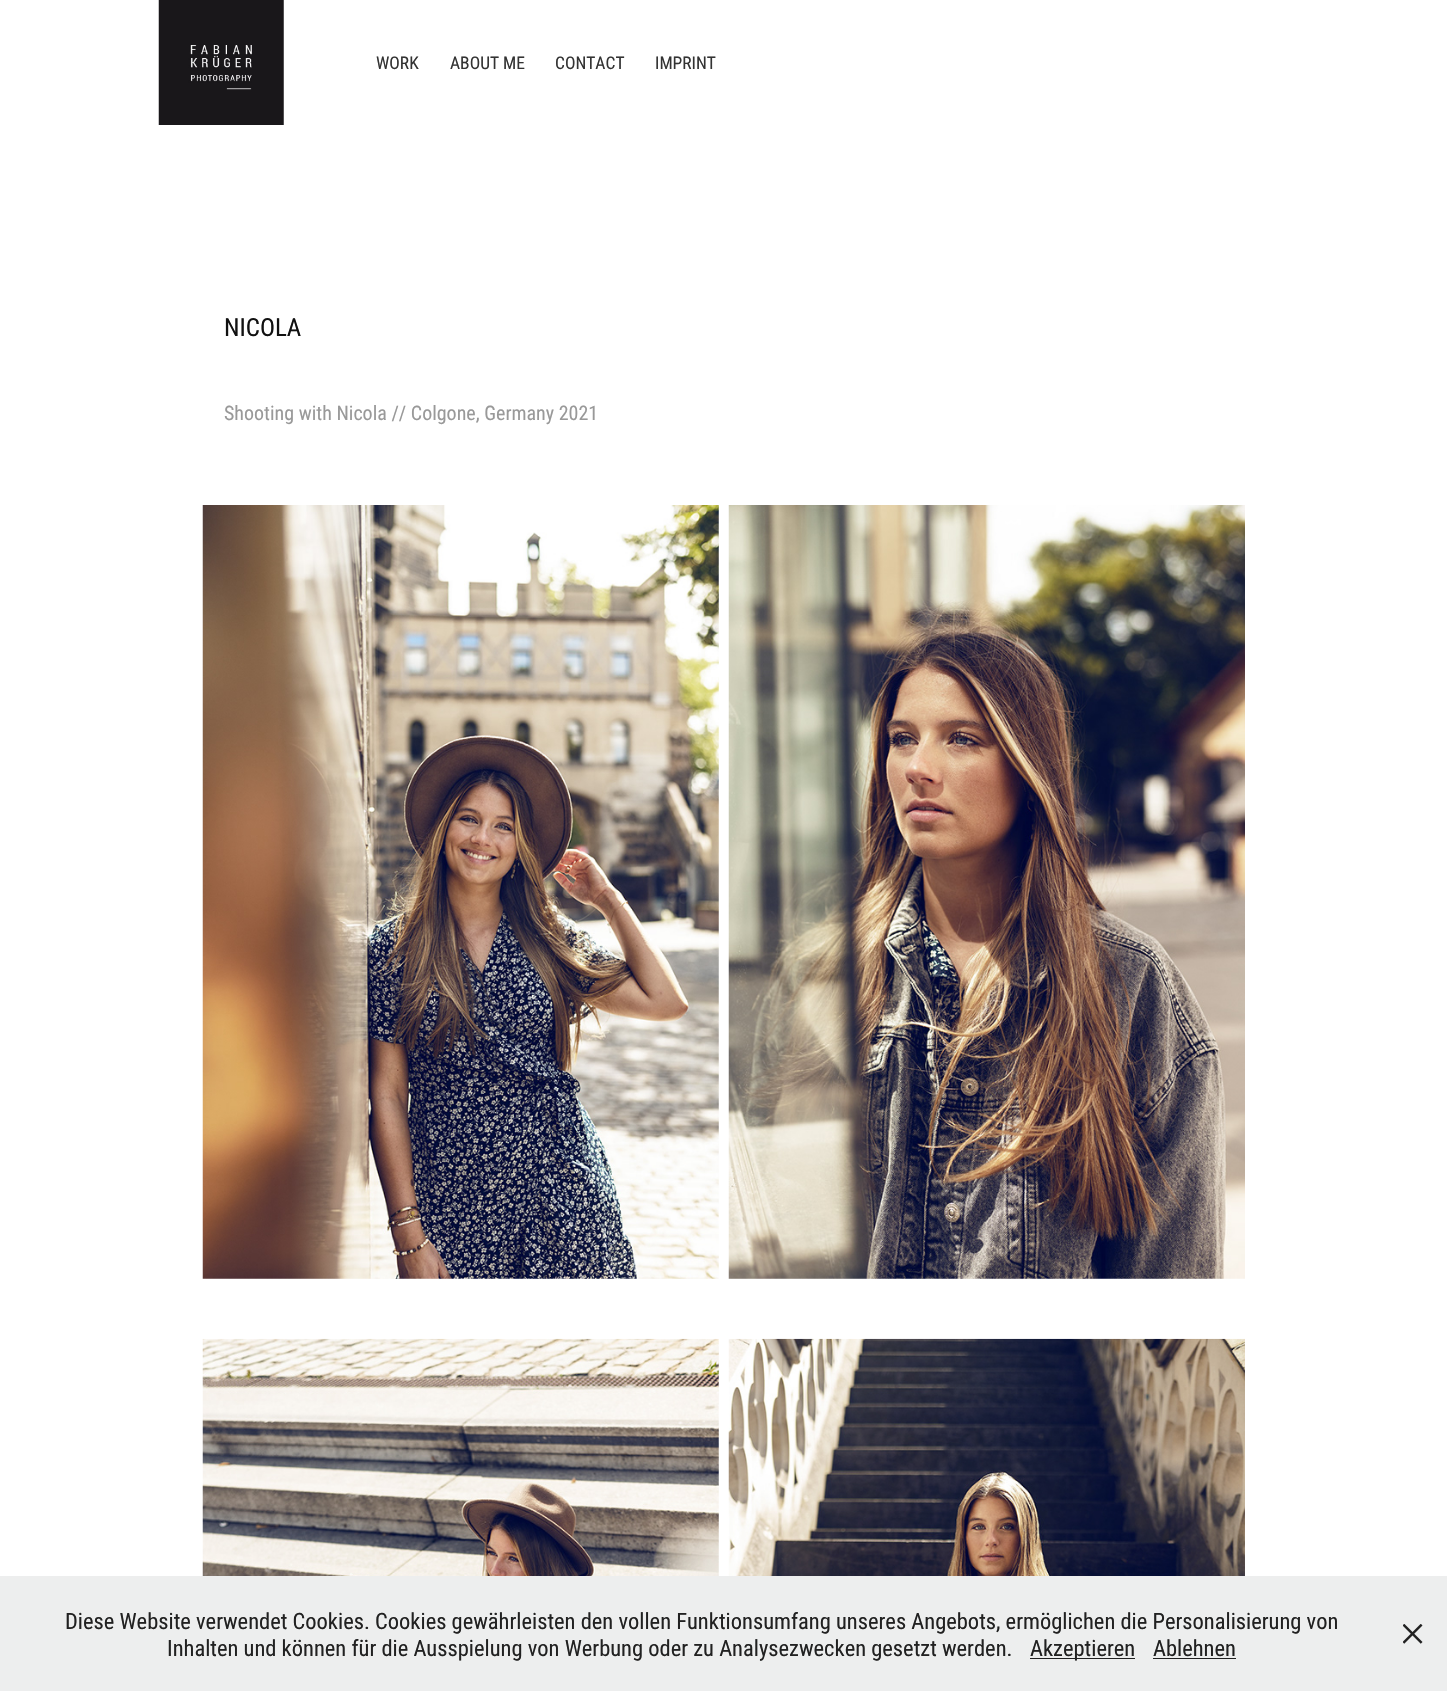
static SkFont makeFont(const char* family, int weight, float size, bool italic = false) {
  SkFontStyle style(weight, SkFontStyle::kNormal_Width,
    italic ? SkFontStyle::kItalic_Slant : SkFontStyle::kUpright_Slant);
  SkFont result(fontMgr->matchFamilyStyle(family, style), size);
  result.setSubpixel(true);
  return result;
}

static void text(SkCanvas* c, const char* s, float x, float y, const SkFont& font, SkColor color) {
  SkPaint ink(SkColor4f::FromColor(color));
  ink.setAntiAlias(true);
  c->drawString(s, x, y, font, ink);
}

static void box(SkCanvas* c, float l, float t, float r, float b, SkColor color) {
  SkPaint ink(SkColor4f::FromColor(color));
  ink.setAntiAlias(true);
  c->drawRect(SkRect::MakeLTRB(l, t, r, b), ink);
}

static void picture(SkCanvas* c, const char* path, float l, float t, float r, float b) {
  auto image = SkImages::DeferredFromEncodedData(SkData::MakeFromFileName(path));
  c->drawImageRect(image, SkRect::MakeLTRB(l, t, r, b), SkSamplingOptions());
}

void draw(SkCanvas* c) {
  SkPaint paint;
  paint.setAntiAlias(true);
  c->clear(0xffffffff);
  picture(c, "img_01.png", 158, 0, 284, 125);
  SkFont face1 = makeFont("Roboto Condensed", 400, 17.5f);
  text(c, "WORK", 376, 69, face1, 0xff333333);
  text(c, "ABOUT ME", 450, 69, face1, 0xff333333);
  text(c, "CONTACT", 555, 69, face1, 0xff333333);
  text(c, "IMPRINT", 655, 69, face1, 0xff333333);
  SkFont face2 = makeFont("Roboto Condensed", 400, 25);
  text(c, "NICOLA", 224, 336, face2, 0xff111111);
  SkFont face3 = makeFont("Roboto Condensed", 400, 20);
  text(c, "Shooting with Nicola // Colgone, Germany 2021", 224, 420, face3, 0xff999999);
  picture(c, "img_02.png", 202, 505, 719, 1279);
  picture(c, "img_03.png", 728, 505, 1245, 1279);
  picture(c, "img_04.png", 202, 1338, 719, 1576);
  picture(c, "img_05.png", 728, 1338, 1245, 1576);
  box(c, 0, 1576, 1447, 1691, 0xffedeeee);
  SkFont face4 = makeFont("Roboto Condensed", 400, 22.5f);
  text(c, "Diese Website verwendet Cookies. Cookies gewährleisten den vollen Funktionsumfang unseres Angebots, ermöglichen die Personalisierung von", 65, 1629, face4, 0xff212121);
  text(c, "Inhalten und können für die Ausspielung von Werbung oder zu Analysezwecken gesetzt werden.", 167, 1656, face4, 0xff212121);
  box(c, 1030, 1658, 1135, 1659, 0xff212121);
  text(c, "Akzeptieren", 1030, 1656, face4, 0xff212121);
  text(c, "Ablehnen", 1153, 1656, face4, 0xff212121);
  box(c, 1153, 1658, 1236, 1659, 0xff212121);
  picture(c, "img_06.png", 1403, 1624, 1423, 1644);
}
